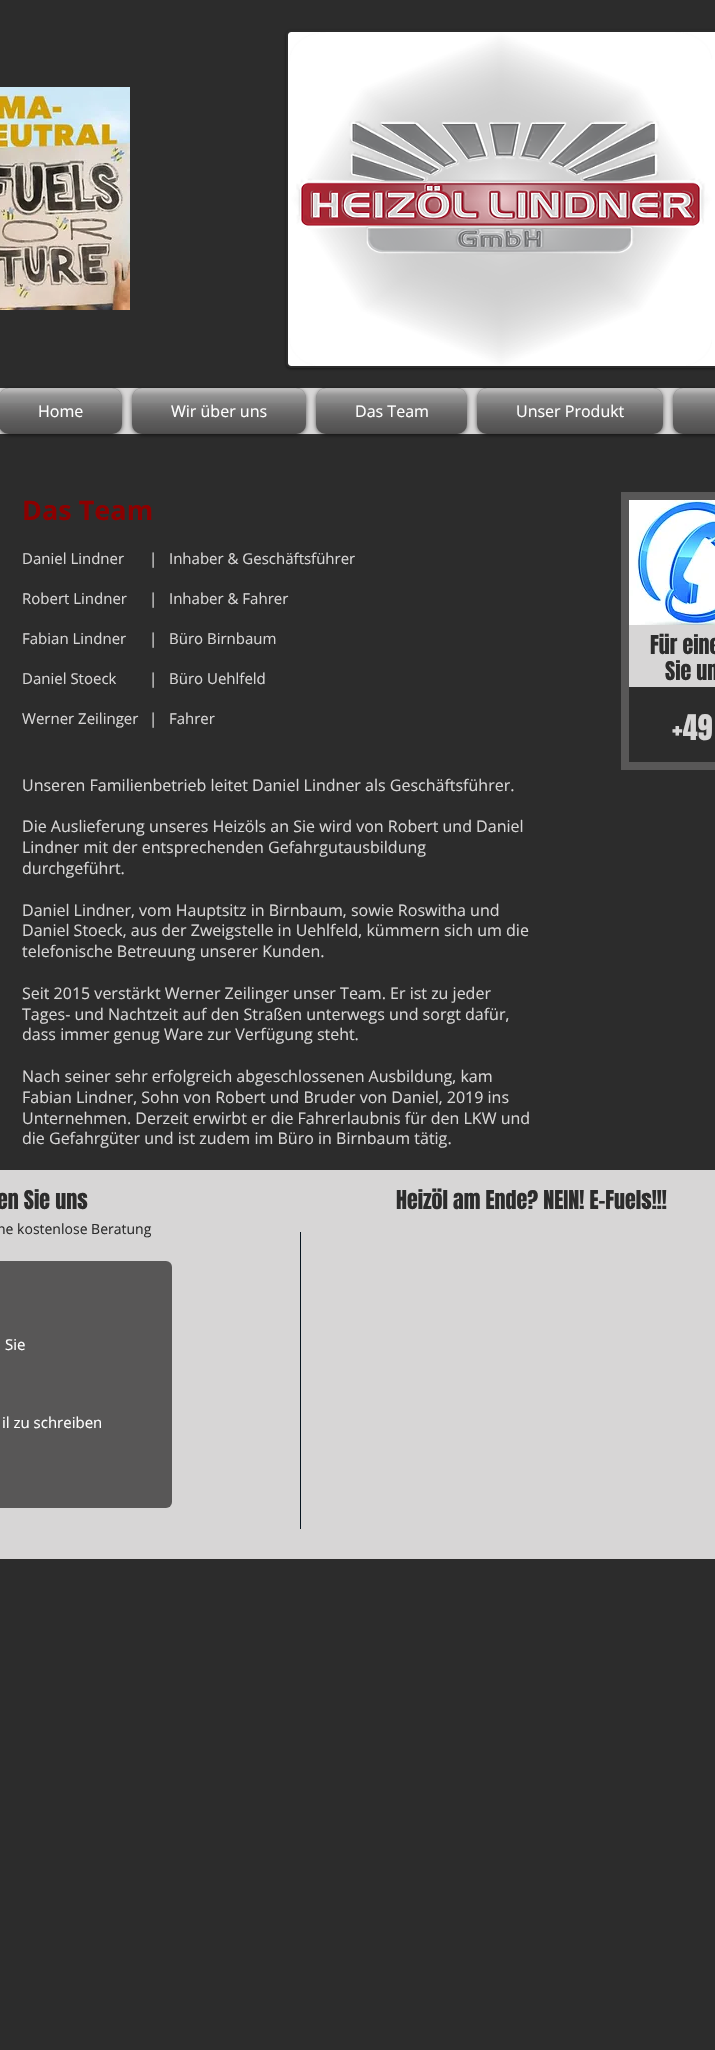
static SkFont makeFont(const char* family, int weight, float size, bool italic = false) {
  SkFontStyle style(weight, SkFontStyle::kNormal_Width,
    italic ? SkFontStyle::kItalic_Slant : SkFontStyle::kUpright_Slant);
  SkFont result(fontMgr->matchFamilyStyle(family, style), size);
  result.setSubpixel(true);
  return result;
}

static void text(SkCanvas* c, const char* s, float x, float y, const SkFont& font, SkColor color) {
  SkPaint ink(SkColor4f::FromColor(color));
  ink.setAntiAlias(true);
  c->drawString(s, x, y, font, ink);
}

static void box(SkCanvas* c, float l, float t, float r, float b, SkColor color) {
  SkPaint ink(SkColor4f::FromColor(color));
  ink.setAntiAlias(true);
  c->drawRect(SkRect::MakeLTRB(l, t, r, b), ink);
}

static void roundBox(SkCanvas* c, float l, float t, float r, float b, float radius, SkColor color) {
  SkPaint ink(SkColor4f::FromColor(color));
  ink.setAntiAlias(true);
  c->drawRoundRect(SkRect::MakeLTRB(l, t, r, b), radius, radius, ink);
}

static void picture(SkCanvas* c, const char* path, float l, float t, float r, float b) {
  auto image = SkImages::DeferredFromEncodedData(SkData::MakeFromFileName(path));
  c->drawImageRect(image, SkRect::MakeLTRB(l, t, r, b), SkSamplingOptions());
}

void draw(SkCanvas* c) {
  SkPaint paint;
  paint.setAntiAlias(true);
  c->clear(0xff2c2c2c);
  picture(c, "img_01.png", 0, 87, 130, 310);
  paint.setColor(0x80000000);
  paint.setMaskFilter(SkMaskFilter::MakeBlur(kNormal_SkBlurStyle, 1.5f));
  c->drawRoundRect(SkRect::MakeLTRB(286, 31, 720, 369), 5, 5, paint);
  paint.setMaskFilter(nullptr);
  paint.setColor(0xff2c2c2c);
  c->drawRoundRect(SkRect::MakeLTRB(287, 31, 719, 367), 4, 4, paint);
  paint.setStyle(SkPaint::kStroke_Style);
  paint.setStrokeWidth(2);
  c->drawRoundRect(SkRect::MakeLTRB(287, 31, 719, 367), 4, 4, paint);
  picture(c, "img_02.png", 288, 32, 715, 366);
  box(c, 0, 388, 683, 434, 0xffd7d6d6);
  paint.setStyle(SkPaint::kFill_Style);
  paint.setColor(0x99000000);
  paint.setMaskFilter(SkMaskFilter::MakeBlur(kNormal_SkBlurStyle, 2));
  c->drawRoundRect(SkRect::MakeLTRB(-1, 389, 122, 435), 10, 10, paint);
  paint.setMaskFilter(nullptr);
  roundBox(c, -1, 388, 122, 434, 10, 0xff585757);
  picture(c, "img_03.png", 0, 388, 122, 433);
  picture(c, "img_04.png", 0, 403, 122, 434);
  SkFont face1 = makeFont("Open Sans", 400, 16);
  text(c, "Home", 38, 417, face1, 0xffffffff);
  paint.setMaskFilter(SkMaskFilter::MakeBlur(kNormal_SkBlurStyle, 2));
  c->drawRoundRect(SkRect::MakeLTRB(132, 389, 306, 435), 10, 10, paint);
  paint.setMaskFilter(nullptr);
  roundBox(c, 132, 388, 306, 434, 10, 0xff585757);
  picture(c, "img_05.png", 132, 388, 306, 433);
  picture(c, "img_06.png", 132, 403, 306, 434);
  text(c, "Wir über uns", 171, 417, face1, 0xffffffff);
  paint.setMaskFilter(SkMaskFilter::MakeBlur(kNormal_SkBlurStyle, 2));
  c->drawRoundRect(SkRect::MakeLTRB(316, 389, 467, 435), 10, 10, paint);
  paint.setMaskFilter(nullptr);
  roundBox(c, 316, 388, 467, 434, 10, 0xff585757);
  picture(c, "img_07.png", 316, 388, 467, 433);
  picture(c, "img_08.png", 316, 403, 467, 434);
  text(c, "Das Team", 355, 417, face1, 0xffffffff);
  paint.setMaskFilter(SkMaskFilter::MakeBlur(kNormal_SkBlurStyle, 2));
  c->drawRoundRect(SkRect::MakeLTRB(477, 389, 663, 435), 10, 10, paint);
  paint.setMaskFilter(nullptr);
  roundBox(c, 477, 388, 663, 434, 10, 0xff585757);
  picture(c, "img_09.png", 477, 388, 663, 433);
  picture(c, "img_10.png", 477, 403, 663, 434);
  text(c, "Unser Produkt", 516, 417, face1, 0xffffffff);
  paint.setMaskFilter(SkMaskFilter::MakeBlur(kNormal_SkBlurStyle, 2));
  c->drawRoundRect(SkRect::MakeLTRB(673, 389, 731, 435), 10, 10, paint);
  paint.setMaskFilter(nullptr);
  roundBox(c, 673, 388, 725, 434, 10, 0xff585757);
  picture(c, "img_11.png", 673, 388, 715, 433);
  picture(c, "img_12.png", 673, 403, 715, 434);
  SkFont face2 = makeFont("Open Sans", 700, 27);
  text(c, "Das Team", 22, 520, face2, 0xff8b0000);
  SkFont face3 = makeFont("Open Sans", 400, 15);
  text(c, "Daniel Lindner", 22, 564, face3, 0xffd7d6d6);
  text(c, "Robert Lindner", 22, 604, face3, 0xffd7d6d6);
  text(c, "Fabian Lindner", 22, 644, face3, 0xffd7d6d6);
  text(c, "Daniel Stoeck", 22, 684, face3, 0xffd7d6d6);
  text(c, "Werner Zeilinger", 22, 724, face3, 0xffd7d6d6);
  text(c, "|   Inhaber & Geschäftsführer", 149, 564, face3, 0xffd7d6d6);
  text(c, "|   Inhaber & Fahrer", 149, 604, face3, 0xffd7d6d6);
  text(c, "|   Büro Birnbaum", 149, 644, face3, 0xffd7d6d6);
  text(c, "|   Büro Uehlfeld", 149, 684, face3, 0xffd7d6d6);
  text(c, "|   Fahrer", 149, 724, face3, 0xffd7d6d6);
  paint.setStyle(SkPaint::kStroke_Style);
  paint.setStrokeWidth(8);
  paint.setColor(0xff585757);
  c->drawRect(SkRect::MakeLTRB(625, 496, 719, 766), paint);
  picture(c, "img_13.png", 629, 500, 715, 625);
  box(c, 629, 625, 715, 687, 0xffd7d6d6);
  SkFont face4 = makeFont("Anton", 400, 22);
  text(c, "Für eine", 650, 654, face4, 0xff2c2c2c);
  text(c, "Sie un", 665, 680, face4, 0xff2c2c2c);
  SkFont face5 = makeFont("Anton", 400, 30);
  text(c, "+49", 672, 740, face5, 0xffd7d6d6);
  text(c, "Unseren Familienbetrieb leitet Daniel Lindner als Geschäftsführer.", 22, 791, face1, 0xffd7d6d6);
  text(c, "Die Auslieferung unseres Heizöls an Sie wird von Robert und Daniel", 22, 832, face1, 0xffd7d6d6);
  text(c, "Lindner mit der entsprechenden Gefahrgutausbildung", 22, 853, face1, 0xffd7d6d6);
  text(c, "durchgeführt.", 22, 874, face1, 0xffd7d6d6);
  text(c, "Daniel Lindner, vom Hauptsitz in Birnbaum, sowie Roswitha und", 22, 916, face1, 0xffd7d6d6);
  text(c, "Daniel Stoeck, aus der Zweigstelle in Uehlfeld, kümmern sich um die", 22, 936, face1, 0xffd7d6d6);
  text(c, "telefonische Betreuung unserer Kunden.", 22, 957, face1, 0xffd7d6d6);
  text(c, "Seit 2015 verstärkt Werner Zeilinger unser Team. Er ist zu jeder", 22, 999, face1, 0xffd7d6d6);
  text(c, "Tages- und Nachtzeit auf den Straßen unterwegs und sorgt dafür,", 22, 1020, face1, 0xffd7d6d6);
  text(c, "dass immer genug Ware zur Verfügung steht.", 22, 1040, face1, 0xffd7d6d6);
  text(c, "Nach seiner sehr erfolgreich abgeschlossenen Ausbildung, kam", 22, 1082, face1, 0xffd7d6d6);
  text(c, "Fabian Lindner, Sohn von Robert und Bruder von Daniel, 2019 ins", 22, 1103, face1, 0xffd7d6d6);
  text(c, "Unternehmen. Derzeit erwirbt er die Fahrerlaubnis für den LKW und", 22, 1124, face1, 0xffd7d6d6);
  text(c, "die Gefahrgüter und ist zudem im Büro in Birnbaum tätig.", 22, 1144, face1, 0xffd7d6d6);
  box(c, 0, 1170, 715, 1559, 0xffd7d6d6);
  text(c, "en Sie uns", -3, 1209, face4, 0xff2c2c2c);
  text(c, "Heizöl am Ende? NEIN! E-Fuels!!!", 396, 1209, face4, 0xff2c2c2c);
  SkFont face6 = makeFont("Open Sans", 400, 14);
  text(c, "ne kostenlose Beratung", -3, 1234, face6, 0xff2c2c2c);
  roundBox(c, -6, 1261, 172, 1508, 6, 0xff585757);
  text(c, "Sie", 5, 1350, face3, 0xffffffff);
  text(c, "il zu schreiben", 2, 1428, face3, 0xffffffff);
  box(c, 300, 1232, 301, 1529, 0xff06141f);
}
